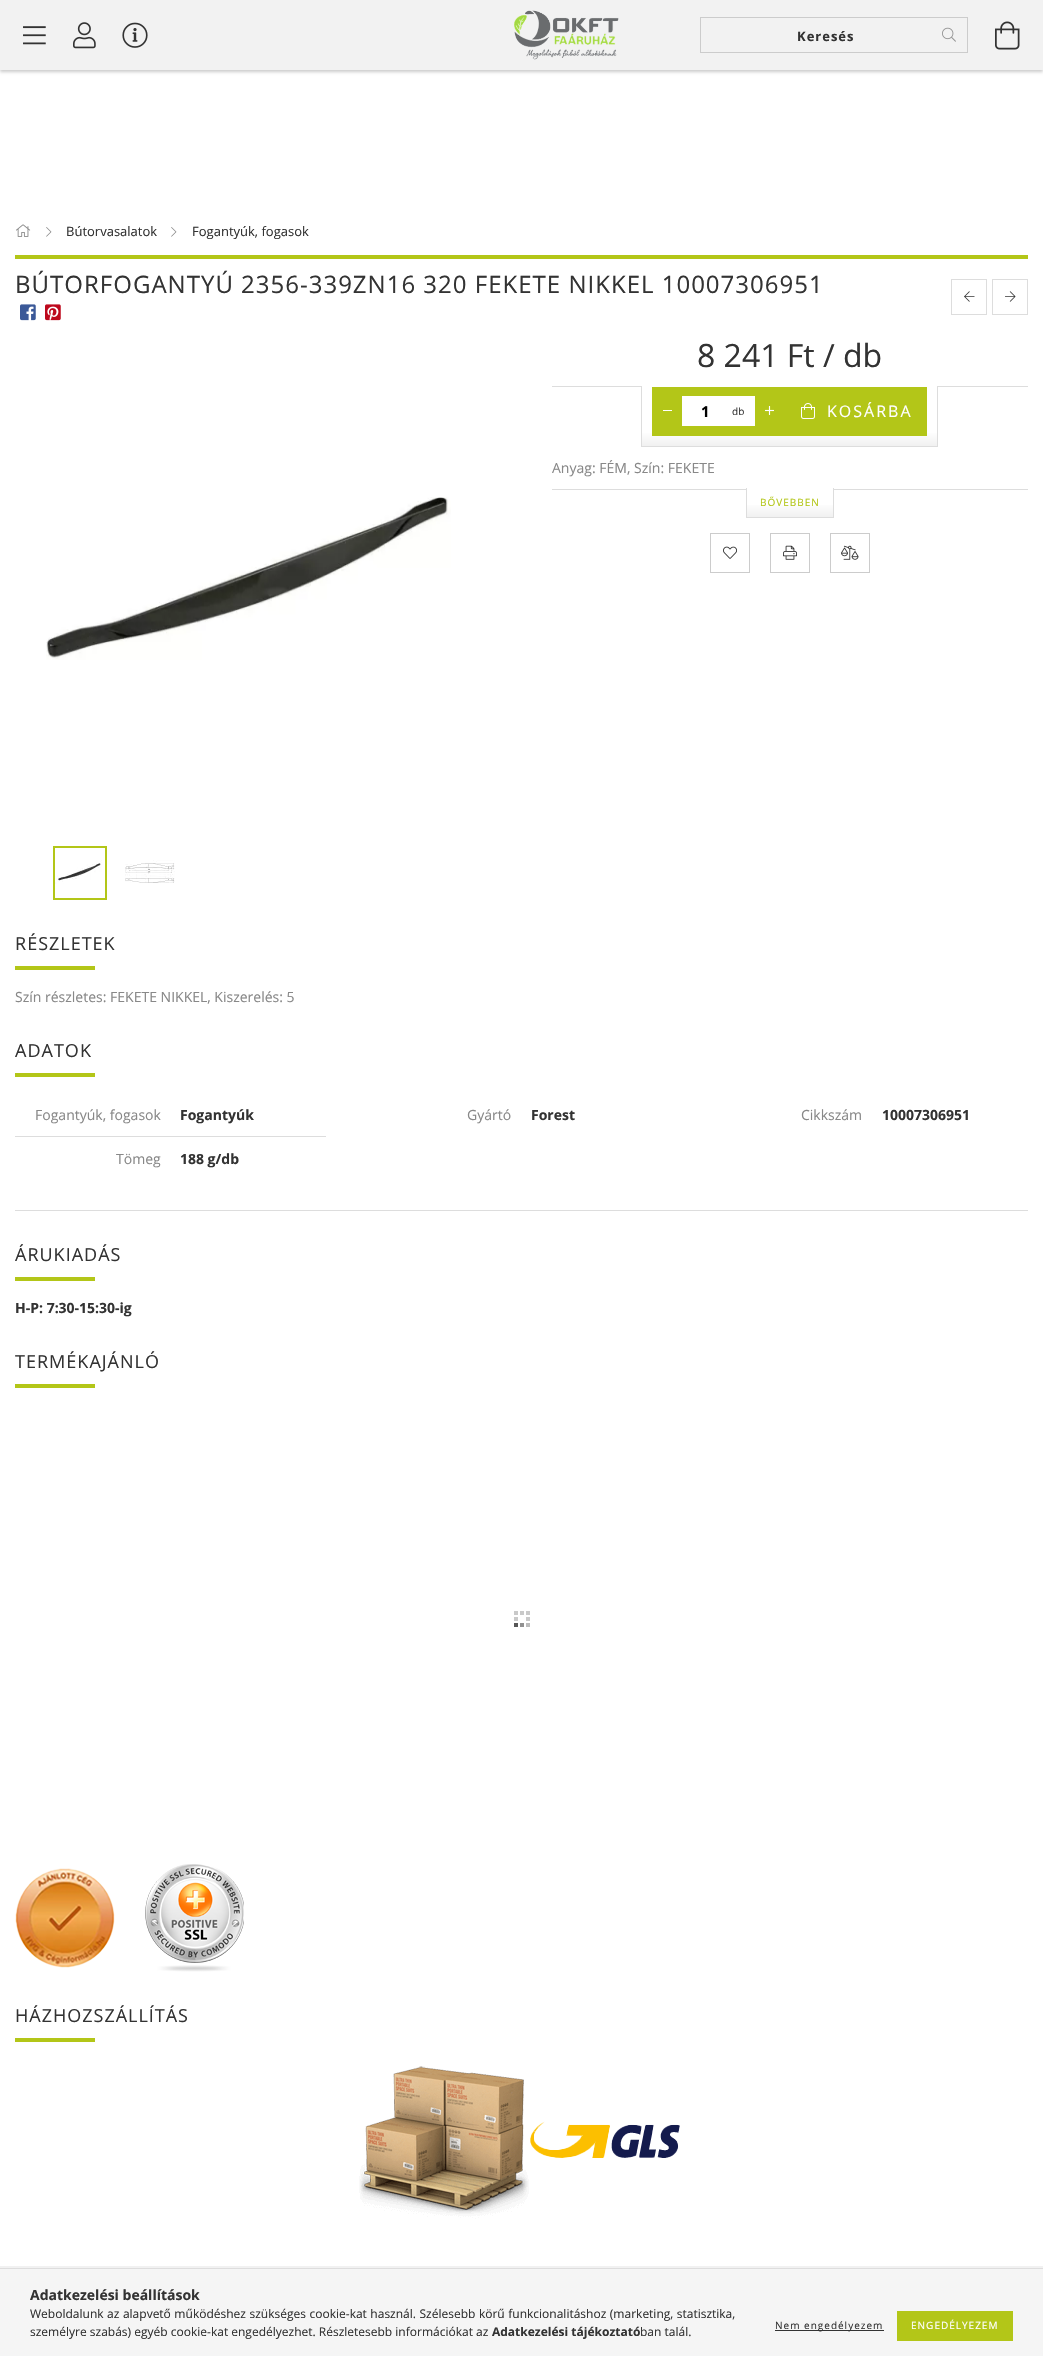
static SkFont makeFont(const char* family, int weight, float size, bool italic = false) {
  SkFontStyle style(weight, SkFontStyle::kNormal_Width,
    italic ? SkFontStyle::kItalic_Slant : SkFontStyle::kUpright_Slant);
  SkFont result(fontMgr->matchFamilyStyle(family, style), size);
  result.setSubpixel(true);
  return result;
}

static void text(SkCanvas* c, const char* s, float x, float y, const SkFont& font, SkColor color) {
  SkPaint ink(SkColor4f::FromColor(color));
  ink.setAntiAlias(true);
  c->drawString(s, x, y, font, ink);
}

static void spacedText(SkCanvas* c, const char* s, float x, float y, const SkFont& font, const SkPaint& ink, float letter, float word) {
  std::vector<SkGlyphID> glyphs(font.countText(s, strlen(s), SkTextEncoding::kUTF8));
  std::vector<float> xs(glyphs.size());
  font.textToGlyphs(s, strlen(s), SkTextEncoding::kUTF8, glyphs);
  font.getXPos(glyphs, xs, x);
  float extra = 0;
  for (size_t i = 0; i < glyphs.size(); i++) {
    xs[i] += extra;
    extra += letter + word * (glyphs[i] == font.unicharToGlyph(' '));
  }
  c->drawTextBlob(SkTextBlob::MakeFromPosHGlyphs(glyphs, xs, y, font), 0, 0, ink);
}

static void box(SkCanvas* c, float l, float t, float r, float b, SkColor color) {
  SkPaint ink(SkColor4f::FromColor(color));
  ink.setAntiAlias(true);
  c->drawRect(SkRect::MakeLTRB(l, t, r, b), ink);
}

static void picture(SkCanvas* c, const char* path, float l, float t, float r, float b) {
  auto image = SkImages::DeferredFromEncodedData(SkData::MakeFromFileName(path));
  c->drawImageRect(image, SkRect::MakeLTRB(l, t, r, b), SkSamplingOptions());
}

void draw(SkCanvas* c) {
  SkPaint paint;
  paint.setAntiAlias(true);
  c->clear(0xffffffff);
  paint.setColor(0x33000000);
  paint.setMaskFilter(SkMaskFilter::MakeBlur(kNormal_SkBlurStyle, 1.5f));
  c->drawRect(SkRect::MakeLTRB(0, 2, 1043, 72), paint);
  paint.setMaskFilter(nullptr);
  box(c, 0, 0, 1043, 70, 0xfff2f2f2);
  picture(c, "img_01.png", 23, 26, 46, 45);
  picture(c, "img_02.png", 73, 22, 96, 49);
  picture(c, "img_03.png", 122, 22, 148, 48);
  picture(c, "img_04.png", 514, 10, 619, 60);
  paint.setStyle(SkPaint::kStroke_Style);
  paint.setStrokeWidth(1);
  paint.setColor(0xffcccccc);
  c->drawRect(SkRect::MakeLTRB(700.5f, 17.5f, 967.5f, 52.5f), paint);
  SkFont face1 = makeFont("Open Sans", 700, 13);
  paint.setStyle(SkPaint::kFill_Style);
  paint.setColor(0xff333333);
  spacedText(c, "Keresés", 797, 41, face1, paint, 1, 0);
  picture(c, "img_05.png", 942, 27, 956, 42);
  picture(c, "img_06.png", 995, 21, 1020, 50);
  picture(c, "img_07.png", 16, 224, 31, 237);
  picture(c, "img_08.png", 46, 227, 52, 237);
  SkFont face2 = makeFont("Open Sans", 400, 13);
  text(c, "Bútorvasalatok", 66, 236, face2, 0xff333333);
  picture(c, "img_08.png", 171, 227, 177, 237);
  text(c, "Fogantyúk, fogasok", 192, 236, face2, 0xff333333);
  box(c, 15, 255, 1028, 259, 0xffb3c618);
  SkFont face3 = makeFont("Open Sans", 400, 24);
  spacedText(c, "BÚTORFOGANTYÚ 2356-339ZN16 320 FEKETE NIKKEL 10007306951", 15, 293, face3, paint, 1, 0);
  picture(c, "img_09.png", 20, 304, 36, 321);
  picture(c, "img_10.png", 45, 304, 61, 321);
  paint.setStyle(SkPaint::kStroke_Style);
  paint.setColor(0xffdddddd);
  c->drawRect(SkRect::MakeLTRB(951.5f, 279.5f, 986.5f, 314.5f), paint);
  picture(c, "img_11.png", 964, 291, 975, 302);
  c->drawRect(SkRect::MakeLTRB(992.5f, 279.5f, 1027.5f, 314.5f), paint);
  picture(c, "img_12.png", 1005, 291, 1016, 302);
  SkFont face4 = makeFont("Open Sans", 400, 32);
  text(c, "8 241 Ft / db", 697, 367, face4, 0xff333333);
  box(c, 552, 386, 1028, 387, 0xffdddddd);
  paint.setStyle(SkPaint::kFill_Style);
  {
    const SkColor colors[] = {0xfff1f1f1, 0x00f1f1f1, 0x00ffffff};
    const float stops[] = {0, 0.25f, 1};
    const SkPoint ends[] = {{790, 446}, {790, 386}};
    paint.setShader(SkGradientShader::MakeLinear(ends, colors, stops, 3, SkTileMode::kClamp));
    paint.setAlpha(255);
  }
  c->drawRect(SkRect::MakeLTRB(642, 433, 937, 446), paint);
  box(c, 937, 386, 938, 447, 0xffdddddd);
  box(c, 641, 446, 938, 447, 0xffdddddd);
  box(c, 641, 386, 642, 447, 0xffdddddd);
  box(c, 642, 386, 937, 387, 0xffffffff);
  box(c, 652, 387, 927, 436, 0xffb3c618);
  box(c, 663, 410, 672, 411, 0xffffffff);
  box(c, 682, 396, 755, 426, 0xffffffff);
  SkFont face5 = makeFont("Open Sans", 700, 15);
  text(c, "1", 701, 417, face5, 0xff000000);
  SkFont face6 = makeFont("Open Sans", 400, 10);
  text(c, "db", 732, 415, face6, 0xff333333);
  picture(c, "img_13.png", 765, 406, 774, 415);
  picture(c, "img_14.png", 801, 403, 815, 419);
  SkFont face7 = makeFont("Open Sans", 400, 16);
  paint.setShader(nullptr);
  paint.setColor(0xffffffff);
  spacedText(c, "KOSÁRBA", 827, 417, face7, paint, 2, 0);
  SkFont face8 = makeFont("Open Sans", 400, 14);
  text(c, "Anyag: FÉM, Szín: FEKETE", 552, 473, face8, 0xff888888);
  {
    const SkColor colors[] = {0xfff1f1f1, 0xffffffff, 0xffffffff};
    const float stops[] = {0, 0.54f, 1};
    const SkPoint ends[] = {{790, 517}, {790, 489}};
    paint.setShader(SkGradientShader::MakeLinear(ends, colors, stops, 3, SkTileMode::kClamp));
    paint.setAlpha(255);
  }
  c->drawRect(SkRect::MakeLTRB(747, 505, 833, 517), paint);
  box(c, 833, 488, 834, 518, 0xffdddddd);
  box(c, 746, 517, 834, 518, 0xffdddddd);
  box(c, 746, 488, 747, 518, 0xffdddddd);
  box(c, 552, 489, 747, 490, 0xffdddddd);
  box(c, 833, 489, 1028, 490, 0xffdddddd);
  paint.setShader(nullptr);
  paint.setColor(0xffb3c618);
  spacedText(c, "BŐVEBBEN", 760, 506, face6, paint, 1, 0);
  paint.setStyle(SkPaint::kStroke_Style);
  paint.setColor(0xffcccccc);
  c->drawRect(SkRect::MakeLTRB(710.5f, 533.5f, 749.5f, 572.5f), paint);
  picture(c, "img_15.png", 723, 546, 737, 559);
  c->drawRect(SkRect::MakeLTRB(770.5f, 533.5f, 809.5f, 572.5f), paint);
  picture(c, "img_16.png", 783, 545, 797, 560);
  c->drawRect(SkRect::MakeLTRB(830.5f, 533.5f, 869.5f, 572.5f), paint);
  picture(c, "img_17.png", 841, 545, 859, 560);
  picture(c, "img_18.png", 46, 497, 451, 660);
  paint.setStrokeWidth(2);
  paint.setColor(0xffb3c618);
  c->drawRect(SkRect::MakeLTRB(54, 847, 106, 899), paint);
  picture(c, "img_19.png", 55, 860, 102, 884);
  picture(c, "img_20.png", 125, 860, 175, 883);
  SkFont face9 = makeFont("Open Sans", 400, 18);
  paint.setStyle(SkPaint::kFill_Style);
  paint.setColor(0xff333333);
  spacedText(c, "RÉSZLETEK", 15, 950, face9, paint, 1, 0);
  box(c, 15, 966, 95, 970, 0xffb3c618);
  text(c, "Szín részletes: FEKETE NIKKEL, Kiszerelés: 5", 15, 1002, face8, 0xff888888);
  spacedText(c, "ADATOK", 15, 1057, face9, paint, 1, 0);
  box(c, 15, 1073, 95, 1077, 0xffb3c618);
  text(c, "Fogantyúk, fogasok", 35, 1120, face8, 0xff888888);
  SkFont face10 = makeFont("Open Sans", 700, 14);
  text(c, "Fogantyúk", 180, 1120, face10, 0xff333333);
  text(c, "Gyártó", 467, 1120, face8, 0xff888888);
  text(c, "Forest", 531, 1120, face10, 0xff333333);
  text(c, "Cikkszám", 801, 1120, face8, 0xff888888);
  text(c, "10007306951", 882, 1120, face10, 0xff333333);
  box(c, 15, 1136, 326, 1137, 0xffdddddd);
  text(c, "Tömeg", 116, 1164, face8, 0xff888888);
  text(c, "188 g/db", 180, 1164, face10, 0xff333333);
  box(c, 15, 1210, 1028, 1211, 0xffdddddd);
  spacedText(c, "ÁRUKIADÁS", 15, 1261, face9, paint, 1, 0);
  box(c, 15, 1277, 95, 1281, 0xffb3c618);
  text(c, "H-P: 7:30-15:30-ig", 15, 1313, face10, 0xff333333);
  spacedText(c, "TERMÉKAJÁNLÓ", 15, 1368, face9, paint, 1, 0);
  box(c, 15, 1384, 95, 1388, 0xffb3c618);
  picture(c, "img_21.png", 514, 1611, 530, 1627);
  picture(c, "img_22.png", 15, 1868, 115, 1968);
  picture(c, "img_23.png", 145, 1864, 244, 1972);
  spacedText(c, "HÁZHOZSZÁLLÍTÁS", 15, 2022, face9, paint, 1, 0);
  box(c, 15, 2038, 95, 2042, 0xffb3c618);
  picture(c, "img_24.png", 359, 2066, 529, 2219);
  picture(c, "img_25.png", 530, 2121, 680, 2158);
  box(c, 0, 2266, 1043, 2268, 0xfff1f1f1);
  box(c, 0, 2269, 1043, 2356, 0xfff5f5f5);
  box(c, 0, 2268, 1043, 2269, 0xffdddddd);
  text(c, "Adatkezelési beállítások", 30, 2300, face10, 0xff333333);
  SkFont face11 = makeFont("Open Sans", 400, 12);
  spacedText(c, "Weboldalunk az alapvető működéshez szükséges cookie-kat használ. Szélesebb körű funkcionalitáshoz (marketing, statisztika,", 30, 2318, face11, paint, 0, 0.4f);
  text(c, "személyre szabás) egyéb cookie-kat engedélyezhet. Részletesebb információkat az", 30, 2336, face11, 0xff333333);
  SkFont face12 = makeFont("Open Sans", 700, 12);
  text(c, "Adatkezelési tájékoztató", 492, 2336, face12, 0xff333333);
  text(c, "ban talál.", 640, 2336, face11, 0xff333333);
  box(c, 775, 2330, 884, 2331, 0xff333333);
  spacedText(c, "Nem engedélyezem", 775, 2329, face6, paint, 1, 0);
  box(c, 897, 2311, 1013, 2341, 0xffb3c618);
  paint.setColor(0xffffffff);
  spacedText(c, "ENGEDÉLYEZEM", 911, 2329, face6, paint, 1, 0);
}
